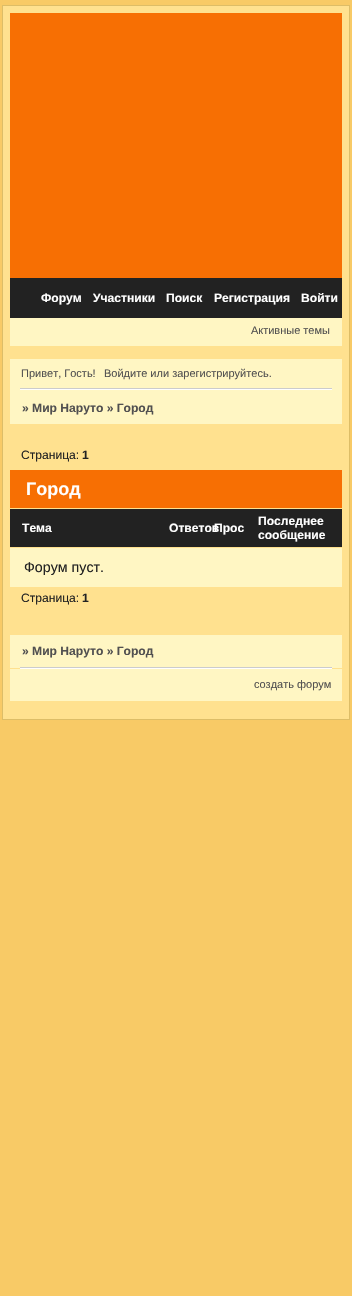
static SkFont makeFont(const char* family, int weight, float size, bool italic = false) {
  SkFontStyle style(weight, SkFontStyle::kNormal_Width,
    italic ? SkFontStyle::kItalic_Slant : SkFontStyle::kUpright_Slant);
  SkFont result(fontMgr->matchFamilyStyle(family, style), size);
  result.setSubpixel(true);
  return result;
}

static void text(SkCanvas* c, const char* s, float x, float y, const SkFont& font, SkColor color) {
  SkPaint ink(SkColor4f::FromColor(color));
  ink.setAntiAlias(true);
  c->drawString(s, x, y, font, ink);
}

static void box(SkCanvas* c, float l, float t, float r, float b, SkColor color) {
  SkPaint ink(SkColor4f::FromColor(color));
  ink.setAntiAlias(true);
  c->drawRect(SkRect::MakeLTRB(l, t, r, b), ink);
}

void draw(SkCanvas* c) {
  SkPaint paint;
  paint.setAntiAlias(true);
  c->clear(0xfff8ca66);
  paint.setColor(0xffffe18f);
  c->drawRect(SkRect::MakeLTRB(2.5f, 5.5f, 349.5f, 719.5f), paint);
  paint.setStyle(SkPaint::kStroke_Style);
  paint.setStrokeWidth(1);
  paint.setColor(0xffddbd67);
  c->drawRect(SkRect::MakeLTRB(2.5f, 5.5f, 349.5f, 719.5f), paint);
  box(c, 10, 13, 342, 278, 0xfff76f03);
  box(c, 10, 278, 342, 318, 0xff222222);
  SkFont face1 = makeFont("Liberation Sans", 700, 12.1f);
  text(c, "Форум", 41, 302, face1, 0xffffffff);
  text(c, "Участники", 93, 302, face1, 0xffffffff);
  text(c, "Поиск", 166, 302, face1, 0xffffffff);
  text(c, "Регистрация", 214, 302, face1, 0xffffffff);
  text(c, "Войти", 301, 302, face1, 0xffffffff);
  box(c, 10, 318, 342, 346, 0xfffff6c3);
  SkFont face2 = makeFont("Liberation Sans", 400, 11);
  text(c, "Активные темы", 251, 334, face2, 0xff515050);
  box(c, 10, 359, 342, 424, 0xfffff6c3);
  text(c, "Привет, Гость!", 21, 377, face2, 0xff515050);
  text(c, "Войдите или зарегистрируйтесь.", 104, 377, face2, 0xff515050);
  box(c, 20, 388, 332, 389, 0xffcccccc);
  box(c, 20, 389, 332, 390, 0xffffffff);
  text(c, "» Мир Наруто » Город", 22, 412, face1, 0xff515050);
  SkFont face3 = makeFont("Liberation Sans", 400, 12.1f);
  text(c, "Страница:", 21, 459, face3, 0xff222222);
  text(c, "1", 82, 459, face1, 0xff222222);
  box(c, 10, 470, 342, 508, 0xfff76f03);
  SkFont face4 = makeFont("Liberation Sans", 700, 18);
  text(c, "Город", 26, 495, face4, 0xffffffff);
  box(c, 10, 548, 342, 587, 0xfffff6c3);
  box(c, 10, 509, 342, 547, 0xff222222);
  text(c, "Тема", 22, 532, face1, 0xffffffff);
  text(c, "Ответов", 169, 532, face1, 0xffffffff);
  text(c, "Прос", 214, 532, face1, 0xffffffff);
  text(c, "Последнее", 258, 525, face1, 0xffffffff);
  text(c, "сообщение", 258, 539, face1, 0xffffffff);
  SkFont face5 = makeFont("Liberation Sans", 400, 14.25f);
  text(c, "Форум пуст.", 24, 572, face5, 0xff222222);
  text(c, "Страница:", 21, 602, face3, 0xff222222);
  text(c, "1", 82, 602, face1, 0xff222222);
  box(c, 10, 635, 342, 668, 0xfffff6c3);
  text(c, "» Мир Наруто » Город", 22, 655, face1, 0xff515050);
  box(c, 20, 667, 332, 668, 0xffcccccc);
  box(c, 20, 668, 332, 669, 0xffffffff);
  box(c, 10, 669, 342, 701, 0xfffff6c3);
  text(c, "создать форум", 254, 688, face2, 0xff515050);
}
